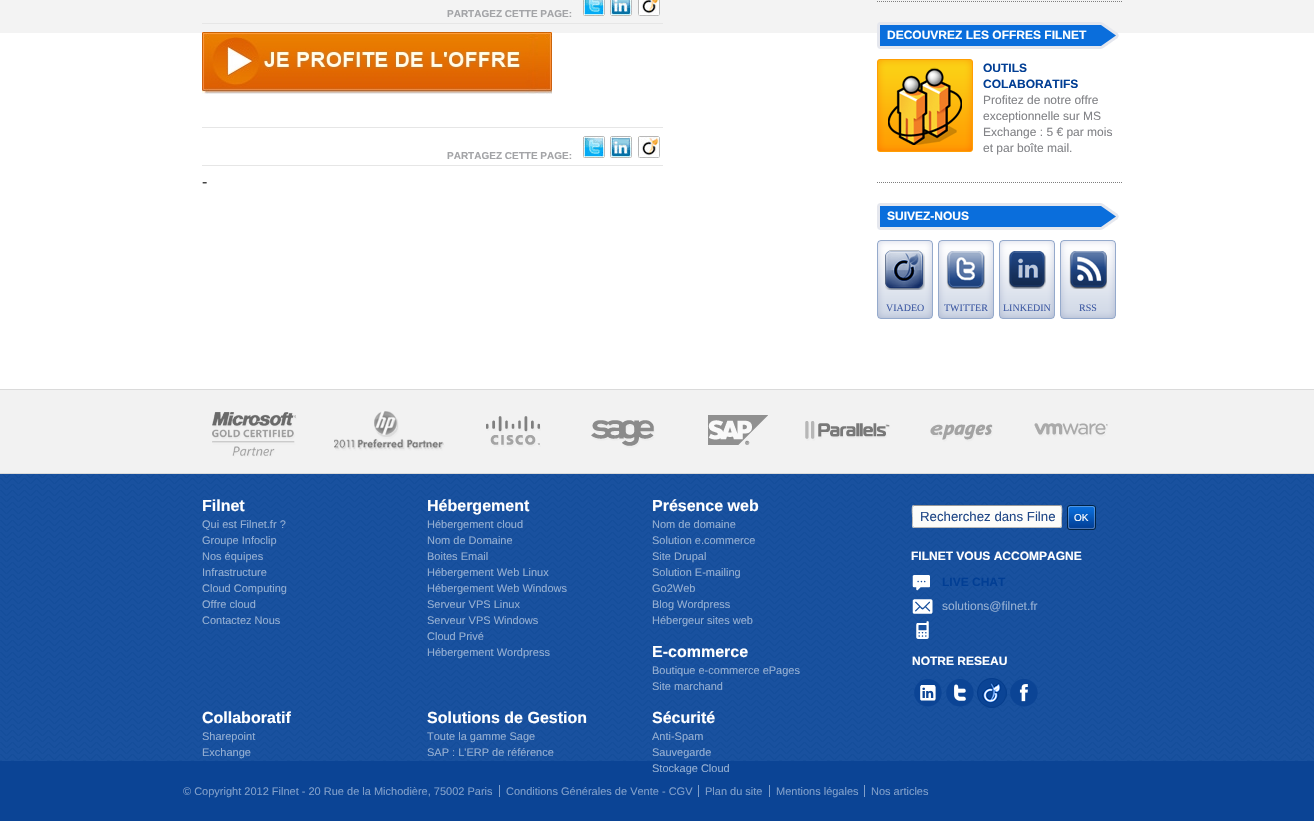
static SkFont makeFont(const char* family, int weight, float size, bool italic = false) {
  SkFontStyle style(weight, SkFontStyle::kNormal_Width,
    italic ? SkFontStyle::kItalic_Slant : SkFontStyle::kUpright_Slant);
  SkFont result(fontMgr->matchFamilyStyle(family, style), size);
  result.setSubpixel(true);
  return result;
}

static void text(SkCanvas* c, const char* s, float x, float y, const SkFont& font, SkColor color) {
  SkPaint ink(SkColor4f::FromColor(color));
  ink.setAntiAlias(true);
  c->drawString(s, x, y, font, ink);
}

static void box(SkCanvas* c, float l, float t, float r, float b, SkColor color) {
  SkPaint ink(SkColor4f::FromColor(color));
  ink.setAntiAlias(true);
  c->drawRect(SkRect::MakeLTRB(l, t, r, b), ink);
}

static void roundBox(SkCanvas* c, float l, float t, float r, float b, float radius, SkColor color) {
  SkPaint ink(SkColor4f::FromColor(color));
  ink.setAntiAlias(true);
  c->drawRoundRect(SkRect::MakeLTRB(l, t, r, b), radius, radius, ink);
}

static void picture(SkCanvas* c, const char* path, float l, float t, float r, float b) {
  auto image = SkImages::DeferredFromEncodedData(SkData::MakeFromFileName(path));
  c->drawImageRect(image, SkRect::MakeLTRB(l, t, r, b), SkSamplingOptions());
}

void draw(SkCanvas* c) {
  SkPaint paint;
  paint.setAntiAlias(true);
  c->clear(0xffffffff);
  box(c, 0, 0, 1314, 33, 0xfff3f3f3);
  SkFont face1 = makeFont("Liberation Sans", 700, 10);
  text(c, "PARTAGEZ CETTE PAGE:", 447, 17, face1, 0xffa3a4a7);
  picture(c, "img_01.png", 583, 0, 605, 16);
  picture(c, "img_02.png", 610, 0, 632, 16);
  picture(c, "img_03.png", 638, 0, 660, 16);
  box(c, 202, 23, 663, 24, 0xffe6e6e6);
  picture(c, "img_04.png", 202, 32, 552, 94);
  box(c, 202, 127, 663, 128, 0xffe6e6e6);
  text(c, "PARTAGEZ CETTE PAGE:", 447, 159, face1, 0xffa3a4a7);
  picture(c, "img_05.png", 583, 136, 605, 158);
  picture(c, "img_06.png", 610, 136, 632, 158);
  picture(c, "img_07.png", 638, 136, 660, 158);
  box(c, 202, 165, 663, 166, 0xffe6e6e6);
  SkFont face2 = makeFont("Liberation Sans", 400, 16);
  text(c, "-", 202, 187, face2, 0xff333333);
  paint.setStyle(SkPaint::kStroke_Style);
  paint.setStrokeWidth(1);
  paint.setColor(0xff7e7e7e);
  paint.setPathEffect(SkDashPathEffect::Make({{1, 1}}, 0));
  c->drawPath(SkPathBuilder().moveTo(877, 1.5f).lineTo(1122, 1.5f).detach(), paint);
  paint.setPathEffect(nullptr);
  paint.setPathEffect(SkDashPathEffect::Make({{1, 1}}, 0));
  c->drawPath(SkPathBuilder().moveTo(877, 182.5f).lineTo(1122, 182.5f).detach(), paint);
  paint.setPathEffect(nullptr);
  picture(c, "img_08.png", 877, 22, 1119, 49);
  SkFont face3 = makeFont("Liberation Sans", 700, 12);
  text(c, "DECOUVREZ LES OFFRES FILNET", 887, 39, face3, 0xffffffff);
  picture(c, "img_09.png", 877, 59, 973, 152);
  text(c, "OUTILS", 983, 72, face3, 0xff013e94);
  text(c, "COLABORATIFS", 983, 88, face3, 0xff013e94);
  SkFont face4 = makeFont("Liberation Sans", 400, 12);
  text(c, "Profitez de notre offre", 983, 104, face4, 0xff828387);
  text(c, "exceptionnelle sur MS", 983, 120, face4, 0xff828387);
  text(c, "Exchange : 5 € par mois", 983, 136, face4, 0xff828387);
  text(c, "et par boîte mail.", 983, 152, face4, 0xff828387);
  picture(c, "img_10.png", 877, 203, 1119, 230);
  text(c, "SUIVEZ-NOUS", 887, 220, face3, 0xffffffff);
  picture(c, "img_11.png", 877, 240, 933, 319);
  picture(c, "img_12.png", 885, 250, 925, 290);
  SkFont face5 = makeFont("Liberation Serif", 400, 10);
  text(c, "VIADEO", 886, 311, face5, 0xff405ba4);
  picture(c, "img_11.png", 938, 240, 994, 319);
  picture(c, "img_13.png", 946, 251, 985, 289);
  text(c, "TWITTER", 944, 311, face5, 0xff405ba4);
  picture(c, "img_11.png", 999, 240, 1055, 319);
  picture(c, "img_14.png", 1008, 251, 1046, 289);
  text(c, "LINKEDIN", 1003, 311, face5, 0xff405ba4);
  picture(c, "img_11.png", 1060, 240, 1116, 319);
  picture(c, "img_15.png", 1069, 251, 1107, 289);
  text(c, "RSS", 1079, 311, face5, 0xff405ba4);
  picture(c, "img_16.png", 0, 389, 1314, 761);
  picture(c, "img_17.png", 212, 411, 1108, 457);
  SkFont face6 = makeFont("Liberation Sans", 700, 16);
  text(c, "Filnet", 202, 511, face6, 0xffffffff);
  SkFont face7 = makeFont("Liberation Sans", 400, 11);
  text(c, "Qui est Filnet.fr ?", 202, 528, face7, 0xff95afd2);
  text(c, "Groupe Infoclip", 202, 544, face7, 0xff95afd2);
  text(c, "Nos équipes", 202, 560, face7, 0xff95afd2);
  text(c, "Infrastructure", 202, 576, face7, 0xff95afd2);
  text(c, "Cloud Computing", 202, 592, face7, 0xff95afd2);
  text(c, "Offre cloud", 202, 608, face7, 0xff95afd2);
  text(c, "Contactez Nous", 202, 624, face7, 0xff95afd2);
  text(c, "Hébergement", 427, 511, face6, 0xffffffff);
  text(c, "Hébergement cloud", 427, 528, face7, 0xff95afd2);
  text(c, "Nom de Domaine", 427, 544, face7, 0xff95afd2);
  text(c, "Boites Email", 427, 560, face7, 0xff95afd2);
  text(c, "Hébergement Web Linux", 427, 576, face7, 0xff95afd2);
  text(c, "Hébergement Web Windows", 427, 592, face7, 0xff95afd2);
  text(c, "Serveur VPS Linux", 427, 608, face7, 0xff95afd2);
  text(c, "Serveur VPS Windows", 427, 624, face7, 0xff95afd2);
  text(c, "Cloud Privé", 427, 640, face7, 0xff95afd2);
  text(c, "Hébergement Wordpress", 427, 656, face7, 0xff95afd2);
  text(c, "Présence web", 652, 511, face6, 0xffffffff);
  text(c, "Nom de domaine", 652, 528, face7, 0xff95afd2);
  text(c, "Solution e.commerce", 652, 544, face7, 0xff95afd2);
  text(c, "Site Drupal", 652, 560, face7, 0xff95afd2);
  text(c, "Solution E-mailing", 652, 576, face7, 0xff95afd2);
  text(c, "Go2Web", 652, 592, face7, 0xff95afd2);
  text(c, "Blog Wordpress", 652, 608, face7, 0xff95afd2);
  text(c, "Hébergeur sites web", 652, 624, face7, 0xff95afd2);
  text(c, "E-commerce", 652, 657, face6, 0xffffffff);
  text(c, "Boutique e-commerce ePages", 652, 674, face7, 0xff95afd2);
  text(c, "Site marchand", 652, 690, face7, 0xff95afd2);
  text(c, "Collaboratif", 202, 723, face6, 0xffffffff);
  text(c, "Sharepoint", 202, 740, face7, 0xff95afd2);
  text(c, "Exchange", 202, 756, face7, 0xff95afd2);
  text(c, "Solutions de Gestion", 427, 723, face6, 0xffffffff);
  text(c, "Toute la gamme Sage", 427, 740, face7, 0xff95afd2);
  text(c, "SAP : L'ERP de référence", 427, 756, face7, 0xff95afd2);
  text(c, "Sécurité", 652, 723, face6, 0xffffffff);
  text(c, "Anti-Spam", 652, 740, face7, 0xff95afd2);
  text(c, "Sauvegarde", 652, 756, face7, 0xff95afd2);
  box(c, 0, 761, 1314, 821, 0xff0b4495);
  text(c, "Stockage Cloud", 652, 772, face7, 0xff95afd2);
  roundBox(c, 912, 505, 1062, 528, 2, 0xfffcfcfa);
  paint.setColor(0xff999999);
  c->drawPath(SkPathBuilder().moveTo(913, 506).lineTo(914, 505.5f).lineTo(1060, 505.5f).lineTo(1061, 506).detach(), paint);
  paint.setColor(0xffb8b8b8);
  c->drawPath(SkPathBuilder().moveTo(1061, 506).cubicTo(1062.5f, 507, 1061.5f, 514.5f, 1061.5f, 516.5f).lineTo(1061.5f, 523).cubicTo(1061.5f, 524, 1062, 527.5f, 1060, 527.5f).lineTo(914, 527.5f).cubicTo(912, 527.5f, 912.5f, 524, 912.5f, 523).lineTo(912.5f, 516.5f).cubicTo(912.5f, 514.5f, 911.5f, 507, 913, 506).detach(), paint);
  SkFont face8 = makeFont("Liberation Sans", 400, 13.25f);
  text(c, "Recherchez dans Filne", 920, 521, face8, 0xff204787);
  picture(c, "img_18.png", 1067, 505, 1096, 530);
  SkFont face9 = makeFont("Liberation Sans", 400, 10);
  text(c, "OK", 1074, 521, face9, 0xffffffff);
  text(c, "FILNET VOUS ACCOMPAGNE", 911, 560, face3, 0xffffffff);
  picture(c, "img_19.png", 912, 575, 930, 591);
  text(c, "LIVE CHAT", 942, 586, face3, 0xff013e94);
  picture(c, "img_20.png", 912, 599, 933, 614);
  text(c, "solutions@filnet.fr", 942, 610, face4, 0xff95afd2);
  picture(c, "img_21.png", 916, 621, 929, 639);
  text(c, "NOTRE RESEAU", 912, 665, face3, 0xffffffff);
  picture(c, "img_22.png", 914, 679, 942, 707);
  picture(c, "img_23.png", 946, 679, 974, 707);
  picture(c, "img_24.png", 977, 678, 1007, 708);
  picture(c, "img_25.png", 1010, 679, 1038, 707);
  box(c, 499, 785, 500, 797, 0xff809fca);
  text(c, "© Copyright 2012 Filnet - 20 Rue de la Michodière, 75002 Paris", 183, 795, face7, 0xff809fca);
  box(c, 698, 785, 699, 797, 0xff809fca);
  text(c, "Conditions Générales de Vente - CGV", 506, 795, face7, 0xff809fca);
  box(c, 769, 785, 770, 797, 0xff809fca);
  text(c, "Plan du site", 705, 795, face7, 0xff809fca);
  box(c, 864, 785, 865, 797, 0xff809fca);
  text(c, "Mentions légales", 776, 795, face7, 0xff809fca);
  text(c, "Nos articles", 871, 795, face7, 0xff809fca);
}
